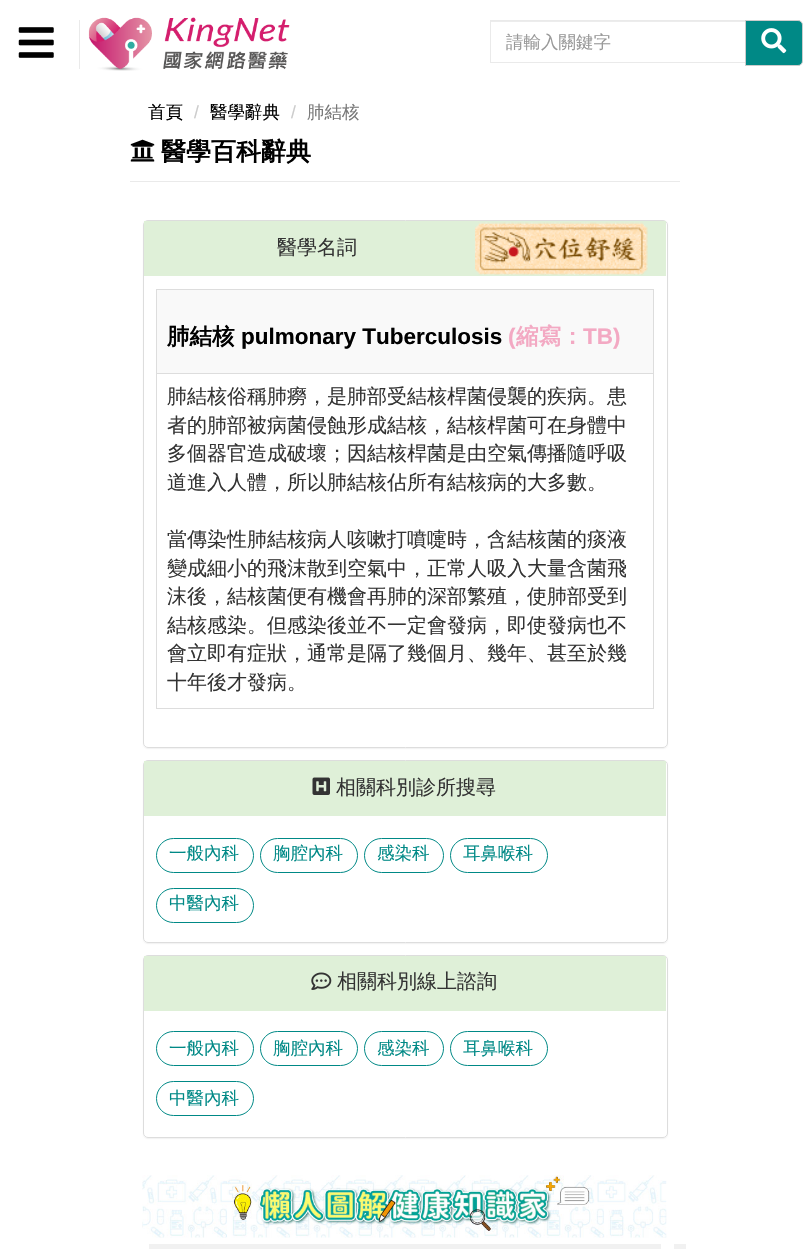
static SkFont makeFont(const char* family, int weight, float size, bool italic = false) {
  SkFontStyle style(weight, SkFontStyle::kNormal_Width,
    italic ? SkFontStyle::kItalic_Slant : SkFontStyle::kUpright_Slant);
  SkFont result(fontMgr->matchFamilyStyle(family, style), size);
  result.setSubpixel(true);
  return result;
}

static void text(SkCanvas* c, const char* s, float x, float y, const SkFont& font, SkColor color) {
  SkPaint ink(SkColor4f::FromColor(color));
  ink.setAntiAlias(true);
  c->drawString(s, x, y, font, ink);
}

static void box(SkCanvas* c, float l, float t, float r, float b, SkColor color) {
  SkPaint ink(SkColor4f::FromColor(color));
  ink.setAntiAlias(true);
  c->drawRect(SkRect::MakeLTRB(l, t, r, b), ink);
}

static void picture(SkCanvas* c, const char* path, float l, float t, float r, float b) {
  auto image = SkImages::DeferredFromEncodedData(SkData::MakeFromFileName(path));
  c->drawImageRect(image, SkRect::MakeLTRB(l, t, r, b), SkSamplingOptions());
}

void draw(SkCanvas* c) {
  SkPaint paint;
  paint.setAntiAlias(true);
  c->clear(0xffffffff);
  box(c, 79, 20, 80, 69, 0xffeaeaea);
  picture(c, "img_01.png", 18, 27, 54, 58);
  picture(c, "img_02.png", 88, 17, 290, 71);
  box(c, 491, 21, 745, 22, 0xffececec);
  paint.setStyle(SkPaint::kStroke_Style);
  paint.setStrokeWidth(1);
  paint.setColor(0xffeaeaea);
  c->drawRect(SkRect::MakeLTRB(490.5f, 20.5f, 745.5f, 62.5f), paint);
  SkFont face1 = makeFont("WenQuanYi Zen Hei", 500, 17.5f);
  text(c, "請輸入關鍵字", 506, 48, face1, 0xff999999);
  paint.setStyle(SkPaint::kFill_Style);
  paint.setColor(0xff008986);
  c->drawPath(SkPathBuilder().moveTo(745.5f, 20.5f).lineTo(798, 20.5f).cubicTo(800.5f, 20.5f, 802.5f, 22.5f, 802.5f, 25).lineTo(802.5f, 61).cubicTo(802.5f, 63.5f, 800.5f, 65.5f, 798, 65.5f).lineTo(745.5f, 65.5f).close().detach(), paint);
  paint.setStyle(SkPaint::kStroke_Style);
  paint.setColor(0xffcccccc);
  c->drawPath(SkPathBuilder().moveTo(745.5f, 20.5f).lineTo(798, 20.5f).cubicTo(800.5f, 20.5f, 802.5f, 22.5f, 802.5f, 25).lineTo(802.5f, 61).cubicTo(802.5f, 63.5f, 800.5f, 65.5f, 798, 65.5f).lineTo(745.5f, 65.5f).close().detach(), paint);
  picture(c, "img_03.png", 761, 28, 787, 54);
  text(c, "首頁", 148, 118, face1, 0xff000000);
  SkFont face2 = makeFont("Liberation Sans", 400, 17.5f);
  text(c, "/", 194, 118, face2, 0xffcccccc);
  text(c, "醫學辭典", 210, 118, face1, 0xff000000);
  text(c, "/", 291, 118, face2, 0xffcccccc);
  text(c, "肺結核", 307, 118, face1, 0xff777777);
  box(c, 130, 181, 680, 182, 0xffeaeaea);
  picture(c, "img_04.png", 130, 139, 155, 162);
  SkFont face3 = makeFont("WenQuanYi Zen Hei", 700, 25);
  text(c, "醫學百科辭典", 161, 160, face3, 0xff000000);
  c->save();
  c->clipPath(SkPathBuilder(SkPathFillType::kEvenOdd).moveTo(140, 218).lineTo(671, 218).lineTo(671, 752).lineTo(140, 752).close().moveTo(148, 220).lineTo(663, 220).cubicTo(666, 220, 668, 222, 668, 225).lineTo(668, 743).cubicTo(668, 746, 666, 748, 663, 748).lineTo(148, 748).cubicTo(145, 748, 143, 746, 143, 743).lineTo(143, 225).cubicTo(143, 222, 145, 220, 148, 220).close().detach(), true);
  paint.setStyle(SkPaint::kFill_Style);
  paint.setColor(0x0d000000);
  paint.setMaskFilter(SkMaskFilter::MakeBlur(kNormal_SkBlurStyle, 0.5f));
  c->drawRoundRect(SkRect::MakeLTRB(143, 221, 668, 749), 5, 5, paint);
  paint.setMaskFilter(nullptr);
  c->restore();
  paint.setStyle(SkPaint::kStroke_Style);
  paint.setColor(0xffdddddd);
  c->drawRoundRect(SkRect::MakeLTRB(143.5f, 220.5f, 667.5f, 747.5f), 4.5f, 4.5f, paint);
  box(c, 144, 221, 666, 276, 0xffdff0d8);
  picture(c, "img_05.png", 475, 222, 648, 275);
  SkFont face4 = makeFont("WenQuanYi Zen Hei", 500, 20);
  text(c, "醫學名詞", 277, 254, face4, 0xff333333);
  box(c, 156, 289, 654, 290, 0xffdddddd);
  box(c, 653, 289, 654, 709, 0xffdddddd);
  box(c, 156, 708, 654, 709, 0xffdddddd);
  box(c, 156, 289, 157, 709, 0xffdddddd);
  box(c, 157, 290, 653, 373, 0xfff9f9f9);
  SkFont face5 = makeFont("WenQuanYi Zen Hei", 700, 22.5f);
  text(c, "肺結核", 167, 344, face5, 0xff000000);
  SkFont face6 = makeFont("Liberation Sans", 700, 22.5f);
  text(c, "pulmonary Tuberculosis", 241, 344, face6, 0xff000000);
  text(c, "(", 508, 344, face6, 0xfff3a9c3);
  text(c, "縮寫：", 516, 344, face5, 0xfff3a9c3);
  text(c, "TB)", 583, 344, face6, 0xfff3a9c3);
  box(c, 156, 373, 654, 374, 0xffdddddd);
  text(c, "肺結核俗稱肺癆，是肺部受結核桿菌侵襲的疾病。患", 167, 403, face4, 0xff333333);
  text(c, "者的肺部被病菌侵蝕形成結核，結核桿菌可在身體中", 167, 432, face4, 0xff333333);
  text(c, "多個器官造成破壞；因結核桿菌是由空氣傳播隨呼吸", 167, 460, face4, 0xff333333);
  text(c, "道進入人體，所以肺結核佔所有結核病的大多數。", 167, 489, face4, 0xff333333);
  text(c, "當傳染性肺結核病人咳嗽打噴嚏時，含結核菌的痰液", 167, 546, face4, 0xff333333);
  text(c, "變成細小的飛沫散到空氣中，正常人吸入大量含菌飛", 167, 575, face4, 0xff333333);
  text(c, "沫後，結核菌便有機會再肺的深部繁殖，使肺部受到", 167, 603, face4, 0xff333333);
  text(c, "結核感染。但感染後並不一定會發病，即使發病也不", 167, 632, face4, 0xff333333);
  text(c, "會立即有症狀，通常是隔了幾個月、幾年、甚至於幾", 167, 660, face4, 0xff333333);
  text(c, "十年後才發病。", 167, 689, face4, 0xff333333);
  c->save();
  c->clipPath(SkPathBuilder(SkPathFillType::kEvenOdd).moveTo(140, 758).lineTo(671, 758).lineTo(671, 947).lineTo(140, 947).close().moveTo(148, 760).lineTo(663, 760).cubicTo(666, 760, 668, 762, 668, 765).lineTo(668, 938).cubicTo(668, 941, 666, 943, 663, 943).lineTo(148, 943).cubicTo(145, 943, 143, 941, 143, 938).lineTo(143, 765).cubicTo(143, 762, 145, 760, 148, 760).close().detach(), true);
  paint.setStyle(SkPaint::kFill_Style);
  paint.setColor(0x0d000000);
  paint.setMaskFilter(SkMaskFilter::MakeBlur(kNormal_SkBlurStyle, 0.5f));
  c->drawRoundRect(SkRect::MakeLTRB(143, 761, 668, 944), 5, 5, paint);
  paint.setMaskFilter(nullptr);
  c->restore();
  paint.setStyle(SkPaint::kStroke_Style);
  paint.setColor(0xffdddddd);
  c->drawRoundRect(SkRect::MakeLTRB(143.5f, 760.5f, 667.5f, 942.5f), 4.5f, 4.5f, paint);
  box(c, 144, 761, 666, 816, 0xffdff0d8);
  picture(c, "img_06.png", 312, 777, 330, 795);
  text(c, "相關科別診所搜尋", 336, 794, face4, 0xff333333);
  paint.setColor(0xff008986);
  c->drawRoundRect(SkRect::MakeLTRB(156.5f, 838.5f, 253.5f, 872.5f), 17, 17, paint);
  text(c, "一般內科", 169, 859, face1, 0xff008986);
  c->drawRoundRect(SkRect::MakeLTRB(260.5f, 838.5f, 357.5f, 872.5f), 17, 17, paint);
  text(c, "胸腔內科", 273, 859, face1, 0xff008986);
  c->drawRoundRect(SkRect::MakeLTRB(364.5f, 838.5f, 443.5f, 872.5f), 17, 17, paint);
  text(c, "感染科", 377, 859, face1, 0xff008986);
  c->drawRoundRect(SkRect::MakeLTRB(450.5f, 838.5f, 547.5f, 872.5f), 17, 17, paint);
  text(c, "耳鼻喉科", 463, 859, face1, 0xff008986);
  c->drawRoundRect(SkRect::MakeLTRB(156.5f, 888.5f, 253.5f, 922.5f), 17, 17, paint);
  text(c, "中醫內科", 169, 909, face1, 0xff008986);
  c->save();
  c->clipPath(SkPathBuilder(SkPathFillType::kEvenOdd).moveTo(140, 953).lineTo(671, 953).lineTo(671, 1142).lineTo(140, 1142).close().moveTo(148, 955).lineTo(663, 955).cubicTo(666, 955, 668, 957, 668, 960).lineTo(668, 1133).cubicTo(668, 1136, 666, 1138, 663, 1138).lineTo(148, 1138).cubicTo(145, 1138, 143, 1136, 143, 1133).lineTo(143, 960).cubicTo(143, 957, 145, 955, 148, 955).close().detach(), true);
  paint.setStyle(SkPaint::kFill_Style);
  paint.setColor(0x0d000000);
  paint.setMaskFilter(SkMaskFilter::MakeBlur(kNormal_SkBlurStyle, 0.5f));
  c->drawRoundRect(SkRect::MakeLTRB(143, 956, 668, 1139), 5, 5, paint);
  paint.setMaskFilter(nullptr);
  c->restore();
  paint.setStyle(SkPaint::kStroke_Style);
  paint.setColor(0xffdddddd);
  c->drawRoundRect(SkRect::MakeLTRB(143.5f, 955.5f, 667.5f, 1137.5f), 4.5f, 4.5f, paint);
  box(c, 144, 956, 666, 1011, 0xffdff0d8);
  picture(c, "img_07.png", 311, 972, 332, 990);
  text(c, "相關科別線上諮詢", 337, 988, face4, 0xff333333);
  paint.setColor(0xff008986);
  c->drawRoundRect(SkRect::MakeLTRB(156.5f, 1031.5f, 253.5f, 1065.5f), 17, 17, paint);
  text(c, "一般內科", 169, 1054, face1, 0xff008986);
  c->drawRoundRect(SkRect::MakeLTRB(260.5f, 1031.5f, 357.5f, 1065.5f), 17, 17, paint);
  text(c, "胸腔內科", 273, 1054, face1, 0xff008986);
  c->drawRoundRect(SkRect::MakeLTRB(364.5f, 1031.5f, 443.5f, 1065.5f), 17, 17, paint);
  text(c, "感染科", 377, 1054, face1, 0xff008986);
  c->drawRoundRect(SkRect::MakeLTRB(450.5f, 1031.5f, 547.5f, 1065.5f), 17, 17, paint);
  text(c, "耳鼻喉科", 463, 1054, face1, 0xff008986);
  c->drawRoundRect(SkRect::MakeLTRB(156.5f, 1081.5f, 253.5f, 1115.5f), 17, 17, paint);
  text(c, "中醫內科", 169, 1104, face1, 0xff008986);
  picture(c, "img_08.png", 142, 1175, 667, 1238);
  box(c, 149, 1244, 661, 1249, 0xfff1f1f1);
  box(c, 674, 1244, 686, 1249, 0xfff1f1f1);
}
